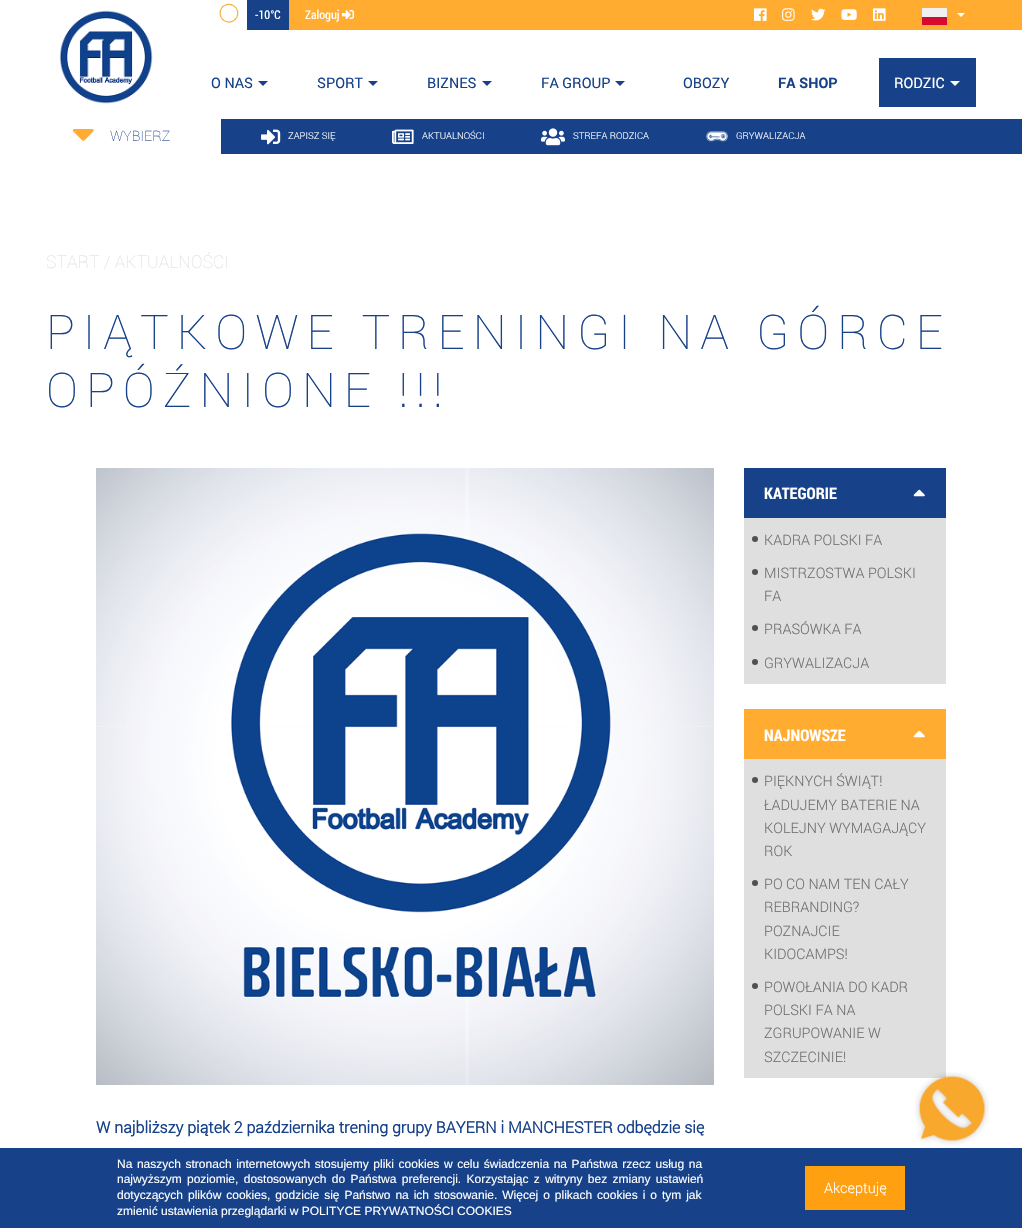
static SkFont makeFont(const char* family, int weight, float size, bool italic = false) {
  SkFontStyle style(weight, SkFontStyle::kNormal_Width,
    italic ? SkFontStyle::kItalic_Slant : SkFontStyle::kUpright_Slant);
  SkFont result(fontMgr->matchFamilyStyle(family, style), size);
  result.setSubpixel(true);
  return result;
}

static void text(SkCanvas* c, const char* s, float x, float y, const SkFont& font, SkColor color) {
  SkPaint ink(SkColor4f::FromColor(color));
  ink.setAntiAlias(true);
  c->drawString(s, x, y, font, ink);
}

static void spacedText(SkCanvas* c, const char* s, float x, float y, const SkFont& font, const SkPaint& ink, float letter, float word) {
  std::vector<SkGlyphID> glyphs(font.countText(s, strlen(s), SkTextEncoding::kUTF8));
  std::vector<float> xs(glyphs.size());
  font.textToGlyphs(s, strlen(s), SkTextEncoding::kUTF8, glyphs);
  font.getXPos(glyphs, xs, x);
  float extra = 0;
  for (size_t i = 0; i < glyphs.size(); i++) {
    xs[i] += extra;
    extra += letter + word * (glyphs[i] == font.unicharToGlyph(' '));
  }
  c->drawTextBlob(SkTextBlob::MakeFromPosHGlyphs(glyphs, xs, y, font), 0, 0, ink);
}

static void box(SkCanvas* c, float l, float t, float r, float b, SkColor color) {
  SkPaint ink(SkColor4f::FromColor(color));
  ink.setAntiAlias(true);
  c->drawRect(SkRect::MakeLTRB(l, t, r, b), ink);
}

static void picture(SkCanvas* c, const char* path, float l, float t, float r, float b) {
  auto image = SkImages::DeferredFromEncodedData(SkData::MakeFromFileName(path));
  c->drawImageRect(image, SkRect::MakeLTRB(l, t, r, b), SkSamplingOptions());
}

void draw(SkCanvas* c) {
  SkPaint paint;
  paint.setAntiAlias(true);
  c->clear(0xffffffff);
  box(c, 289, 0, 1022, 30, 0xffffac30);
  picture(c, "img_01.png", 59, 10, 153, 104);
  picture(c, "img_02.png", 219, 3, 239, 23);
  box(c, 247, 0, 289, 30, 0xff17428a);
  SkFont face1 = makeFont("Roboto Condensed", 400, 12);
  text(c, "-10°C", 255, 19, face1, 0xffffffff);
  text(c, "Zaloguj", 305, 19, face1, 0xffffffff);
  picture(c, "img_03.png", 342, 10, 354, 20);
  picture(c, "img_04.png", 754, 8, 767, 21);
  picture(c, "img_05.png", 782, 8, 795, 21);
  picture(c, "img_06.png", 811, 8, 826, 21);
  picture(c, "img_07.png", 841, 9, 857, 20);
  picture(c, "img_08.png", 873, 8, 886, 21);
  box(c, 922, 8, 947, 17, 0xfff0f0f0);
  box(c, 922, 17, 947, 25, 0xffd60a2e);
  paint.setColor(0xffffffff);
  c->drawPath(SkPathBuilder().moveTo(957, 13).lineTo(965, 13).lineTo(961, 17).close().detach(), paint);
  SkFont face2 = makeFont("Roboto", 400, 14.4f);
  text(c, "O NAS", 211, 88, face2, 0xff17428a);
  paint.setColor(0xff17428a);
  c->drawPath(SkPathBuilder().moveTo(258, 81).lineTo(268, 81).lineTo(263, 86).close().detach(), paint);
  text(c, "SPORT", 317, 88, face2, 0xff17428a);
  c->drawPath(SkPathBuilder().moveTo(368, 81).lineTo(378, 81).lineTo(373, 86).close().detach(), paint);
  text(c, "BIZNES", 427, 88, face2, 0xff17428a);
  c->drawPath(SkPathBuilder().moveTo(482, 81).lineTo(492, 81).lineTo(487, 86).close().detach(), paint);
  text(c, "FA GROUP", 541, 88, face2, 0xff17428a);
  c->drawPath(SkPathBuilder().moveTo(615, 81).lineTo(625, 81).lineTo(620, 86).close().detach(), paint);
  text(c, "OBOZY", 683, 88, face2, 0xff17428a);
  SkFont face3 = makeFont("Roboto", 700, 14.4f);
  text(c, "FA SHOP", 778, 88, face3, 0xff17428a);
  box(c, 879, 58, 976, 107, 0xff17428a);
  text(c, "RODZIC", 894, 88, face2, 0xffffffff);
  paint.setColor(0xffffffff);
  c->drawPath(SkPathBuilder().moveTo(950, 81).lineTo(960, 81).lineTo(955, 86).close().detach(), paint);
  picture(c, "img_09.png", 72, 129, 94, 141);
  SkFont face4 = makeFont("Roboto", 100, 14.4f);
  text(c, "WYBIERZ", 110, 141, face4, 0xff17428a);
  box(c, 221, 119, 1022, 154, 0xff17428a);
  picture(c, "img_10.png", 261, 129, 281, 145);
  SkFont face5 = makeFont("Roboto", 300, 9.5f);
  text(c, "ZAPISZ SIĘ", 288, 139, face5, 0xffffffff);
  picture(c, "img_11.png", 392, 129, 414, 144);
  text(c, "AKTUALNOŚCI", 422, 139, face5, 0xffffffff);
  picture(c, "img_12.png", 541, 128, 565, 146);
  text(c, "STREFA RODZICA", 573, 139, face5, 0xffffffff);
  picture(c, "img_13.png", 706, 131, 728, 142);
  text(c, "GRYWALIZACJA", 736, 139, face5, 0xffffffff);
  SkFont face6 = makeFont("Roboto", 100, 17.6f);
  text(c, "START / AKTUALNOŚCI", 46, 268, face6, 0xffdfdfdf);
  SkFont face7 = makeFont("Roboto", 100, 48);
  paint.setColor(0xff17428a);
  spacedText(c, "PIĄTKOWE TRENINGI NA GÓRCE", 46, 349, face7, paint, 8, 0);
  spacedText(c, "OPÓŹNIONE !!!", 46, 407, face7, paint, 8, 0);
  box(c, 744, 518, 946, 684, 0xffdfdfdf);
  box(c, 744, 468, 946, 518, 0xff17428a);
  SkFont face8 = makeFont("Roboto Condensed", 700, 16);
  text(c, "KATEGORIE", 764, 499, face8, 0xffffffff);
  picture(c, "img_14.png", 913, 489, 925, 497);
  paint.setColor(0xff505050);
  c->drawCircle(755, 539, 3, paint);
  SkFont face9 = makeFont("Roboto", 300, 14.4f);
  text(c, "KADRA POLSKI FA", 764, 545, face9, 0xff707070);
  c->drawCircle(755, 572, 3, paint);
  text(c, "MISTRZOSTWA POLSKI", 764, 578, face9, 0xff707070);
  text(c, "FA", 764, 601, face9, 0xff707070);
  c->drawCircle(755, 628, 3, paint);
  text(c, "PRASÓWKA FA", 764, 634, face9, 0xff707070);
  c->drawCircle(755, 662, 3, paint);
  text(c, "GRYWALIZACJA", 764, 668, face9, 0xff707070);
  box(c, 744, 759, 946, 1078, 0xffdfdfdf);
  box(c, 744, 709, 946, 759, 0xffffac30);
  text(c, "NAJNOWSZE", 764, 741, face8, 0xffffffff);
  picture(c, "img_15.png", 913, 730, 925, 738);
  c->drawCircle(755, 780, 3, paint);
  text(c, "PIĘKNYCH ŚWIĄT!", 764, 786, face9, 0xff707070);
  text(c, "ŁADUJEMY BATERIE NA", 764, 810, face9, 0xff707070);
  text(c, "KOLEJNY WYMAGAJĄCY", 764, 833, face9, 0xff707070);
  text(c, "ROK", 764, 856, face9, 0xff707070);
  c->drawCircle(755, 883, 3, paint);
  text(c, "PO CO NAM TEN CAŁY", 764, 889, face9, 0xff707070);
  text(c, "REBRANDING?", 764, 912, face9, 0xff707070);
  text(c, "POZNAJCIE", 764, 936, face9, 0xff707070);
  text(c, "KIDOCAMPS!", 764, 959, face9, 0xff707070);
  c->drawCircle(755, 986, 3, paint);
  text(c, "POWOŁANIA DO KADR", 764, 992, face9, 0xff707070);
  text(c, "POLSKI FA NA", 764, 1015, face9, 0xff707070);
  text(c, "ZGRUPOWANIE W", 764, 1038, face9, 0xff707070);
  text(c, "SZCZECINIE!", 764, 1062, face9, 0xff707070);
  picture(c, "img_16.png", 96, 468, 714, 1085);
  SkFont face10 = makeFont("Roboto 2", 700, 16);
  text(c, "W najbliższy piątek 2 października trening grupy BAYERN i MANCHESTER odbędzie się", 96, 1133, face10, 0xff17428a);
  picture(c, "img_17.png", 915, 1072, 989, 1145);
  box(c, 0, 1148, 1022, 1228, 0xff17428a);
  SkFont face11 = makeFont("Liberation Sans", 400, 12);
  paint.setColor(0xffffffff);
  spacedText(c, "Na naszych stronach internetowych stosujemy pliki cookies w celu świadczenia na Państwa rzecz usług na", 117, 1168, face11, paint, 0, 1.25f);
  spacedText(c, "najwyższym poziomie, dostosowanych do Państwa preferencji. Korzystając z witryny bez zmiany ustawień", 117, 1183, face11, paint, 0, 2);
  spacedText(c, "dotyczących plików cookies, godzicie się Państwo na ich stosowanie. Więcej o plikach cookies i o tym jak", 117, 1199, face11, paint, 0, 1.6f);
  text(c, "zmienić ustawienia przeglądarki w POLITYCE PRYWATNOŚCI COOKIES", 117, 1215, face11, 0xffffffff);
  box(c, 805, 1166, 905, 1210, 0xffffa011);
  text(c, "Akceptuję", 824, 1193, face9, 0xffffffff);
}
